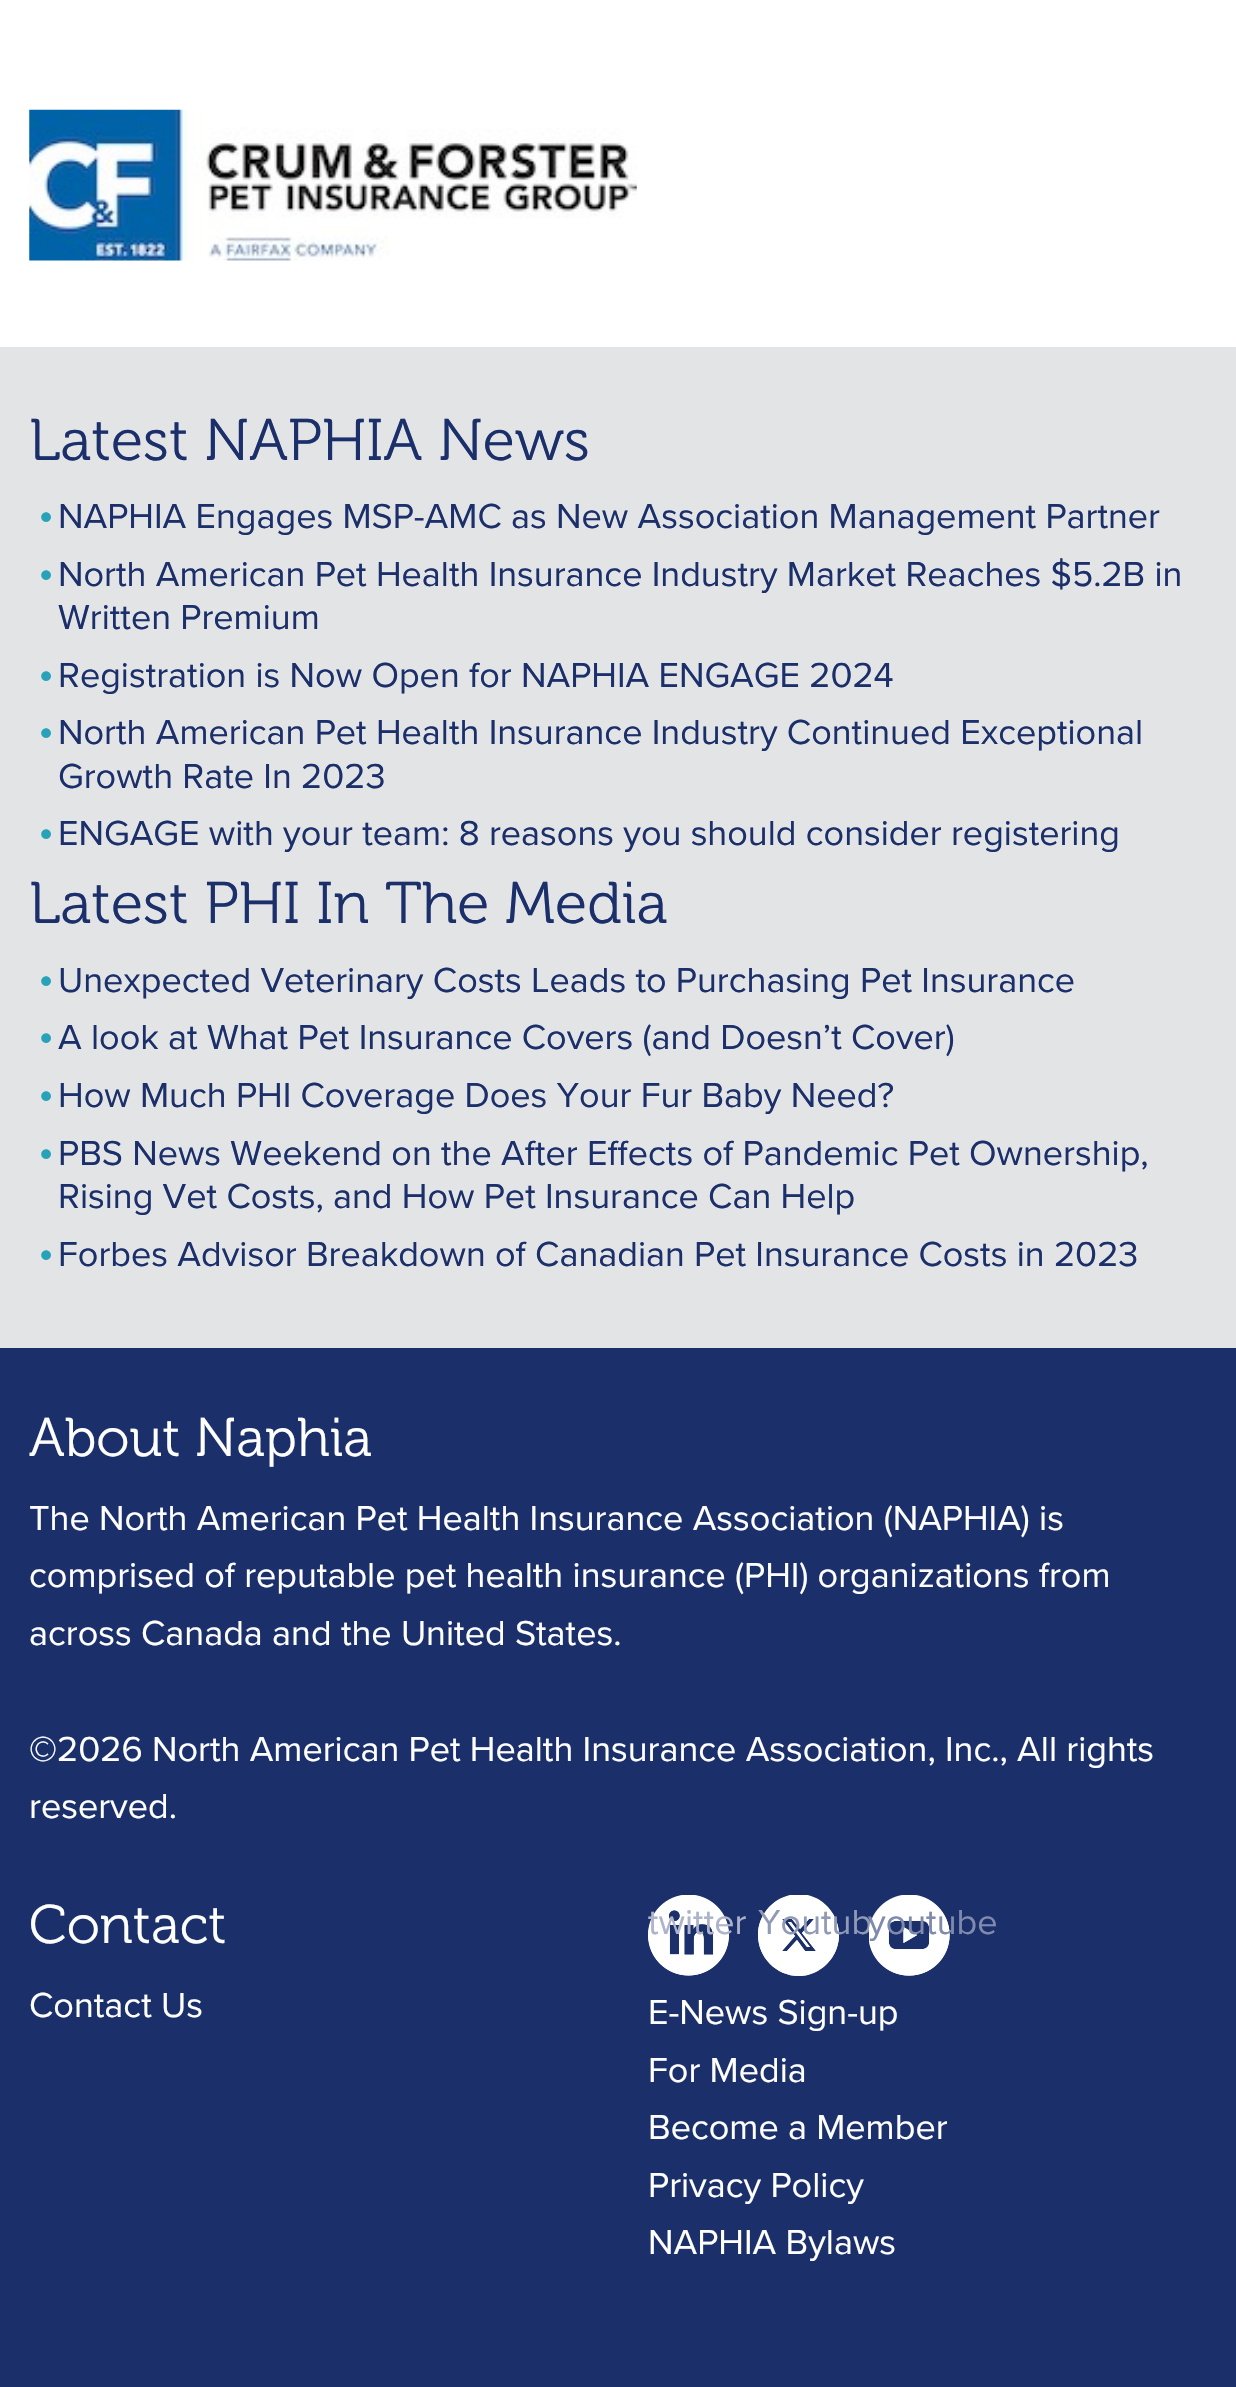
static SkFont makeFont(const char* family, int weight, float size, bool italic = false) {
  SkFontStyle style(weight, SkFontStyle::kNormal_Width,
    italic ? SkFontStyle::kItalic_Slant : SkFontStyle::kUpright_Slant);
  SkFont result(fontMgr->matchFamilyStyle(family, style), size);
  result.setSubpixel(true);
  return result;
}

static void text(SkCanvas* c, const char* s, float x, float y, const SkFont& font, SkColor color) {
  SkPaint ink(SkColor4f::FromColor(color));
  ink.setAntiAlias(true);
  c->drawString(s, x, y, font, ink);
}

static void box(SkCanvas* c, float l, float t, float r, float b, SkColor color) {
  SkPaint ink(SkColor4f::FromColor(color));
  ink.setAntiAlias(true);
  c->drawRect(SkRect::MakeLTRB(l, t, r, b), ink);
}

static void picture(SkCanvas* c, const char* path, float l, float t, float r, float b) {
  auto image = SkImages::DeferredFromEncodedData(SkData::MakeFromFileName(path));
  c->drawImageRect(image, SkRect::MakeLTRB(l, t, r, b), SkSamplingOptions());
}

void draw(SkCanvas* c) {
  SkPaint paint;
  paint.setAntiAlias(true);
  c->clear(0xffffffff);
  picture(c, "img_01.png", 29, 109, 637, 261);
  box(c, 0, 347, 1236, 1348, 0xffe3e4e5);
  SkFont face1 = makeFont("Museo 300", 300, 58.75f);
  text(c, "Latest NAPHIA News", 29, 460, face1, 0xff1b2f6b);
  SkFont face2 = makeFont("Proxima Nova", 400, 45);
  text(c, "•", 38, 528, face2, 0xff28a2b9);
  SkFont face3 = makeFont("Proxima Nova", 400, 36);
  text(c, "NAPHIA Engages MSP-AMC as New Association Management Partner", 58, 528, face3, 0xff1b2f6b);
  text(c, "•", 38, 586, face2, 0xff28a2b9);
  text(c, "North American Pet Health Insurance Industry Market Reaches $5.2B in", 58, 586, face3, 0xff1b2f6b);
  text(c, "Written Premium", 58, 629, face3, 0xff1b2f6b);
  text(c, "•", 38, 687, face2, 0xff28a2b9);
  text(c, "Registration is Now Open for NAPHIA ENGAGE 2024", 58, 687, face3, 0xff1b2f6b);
  text(c, "•", 38, 744, face2, 0xff28a2b9);
  text(c, "North American Pet Health Insurance Industry Continued Exceptional", 58, 744, face3, 0xff1b2f6b);
  text(c, "Growth Rate In 2023", 58, 788, face3, 0xff1b2f6b);
  text(c, "•", 38, 845, face2, 0xff28a2b9);
  text(c, "ENGAGE with your team: 8 reasons you should consider registering", 58, 845, face3, 0xff1b2f6b);
  text(c, "Latest PHI In The Media", 29, 923, face1, 0xff1b2f6b);
  text(c, "•", 38, 992, face2, 0xff28a2b9);
  text(c, "Unexpected Veterinary Costs Leads to Purchasing Pet Insurance", 58, 992, face3, 0xff1b2f6b);
  text(c, "•", 38, 1049, face2, 0xff28a2b9);
  text(c, "A look at What Pet Insurance Covers (and Doesn’t Cover)", 58, 1049, face3, 0xff1b2f6b);
  text(c, "•", 38, 1107, face2, 0xff28a2b9);
  text(c, "How Much PHI Coverage Does Your Fur Baby Need?", 58, 1107, face3, 0xff1b2f6b);
  text(c, "•", 38, 1165, face2, 0xff28a2b9);
  text(c, "PBS News Weekend on the After Effects of Pandemic Pet Ownership,", 58, 1165, face3, 0xff1b2f6b);
  text(c, "Rising Vet Costs, and How Pet Insurance Can Help", 58, 1208, face3, 0xff1b2f6b);
  text(c, "•", 38, 1266, face2, 0xff28a2b9);
  text(c, "Forbes Advisor Breakdown of Canadian Pet Insurance Costs in 2023", 58, 1266, face3, 0xff1b2f6b);
  box(c, 0, 1348, 1236, 2387, 0xff1b2f6b);
  SkFont face4 = makeFont("Museo 300", 300, 54.25f);
  text(c, "About Naphia", 29, 1456, face4, 0xffffffff);
  text(c, "The North American Pet Health Insurance Association (NAPHIA) is", 29, 1530, face3, 0xffffffff);
  text(c, "comprised of reputable pet health insurance (PHI) organizations from", 29, 1587, face3, 0xffffffff);
  text(c, "across Canada and the United States.", 29, 1645, face3, 0xffffffff);
  text(c, "©2026 North American Pet Health Insurance Association, Inc., All rights", 29, 1761, face3, 0xffffffff);
  text(c, "reserved.", 29, 1818, face3, 0xffffffff);
  text(c, "Contact", 29, 1943, face4, 0xffffffff);
  text(c, "Contact Us", 29, 2017, face3, 0xffffffff);
  picture(c, "img_02.png", 648, 1895, 729, 1976);
  picture(c, "img_03.png", 648, 1895, 729, 1976);
  text(c, "twitter", 648, 1934, face3, 0xffadb4ca);
  c->save();
  c->clipRect(SkRect::MakeLTRB(758, 1895, 839, 1976));
  paint.setColor(0xffffffff);
  c->drawPath(SkPathBuilder(SkPathFillType::kEvenOdd).moveTo(799, 1894).cubicTo(821, 1894, 839, 1913, 839, 1935).cubicTo(839, 1957, 821, 1976, 799, 1976).cubicTo(776, 1976, 758, 1957, 758, 1935).cubicTo(758, 1913, 776, 1894, 799, 1894).close().moveTo(809, 1919).lineTo(814, 1919).lineTo(802, 1933).lineTo(816, 1951).lineTo(805, 1951).lineTo(797, 1940).lineTo(787, 1951).lineTo(782, 1951).lineTo(795, 1936).lineTo(782, 1919).lineTo(792, 1919).lineTo(800, 1929).close().moveTo(807, 1947).lineTo(810, 1947).lineTo(791, 1922).lineTo(788, 1922).close().detach(), paint);
  c->restore();
  c->drawPath(SkPathBuilder(SkPathFillType::kEvenOdd).moveTo(798, 1895).cubicTo(821, 1895, 839, 1913, 839, 1935).cubicTo(839, 1952, 828, 1967, 813, 1973).cubicTo(809, 1975, 804, 1976, 799, 1976).cubicTo(776, 1976, 758, 1957, 758, 1935).cubicTo(758, 1913, 776, 1895, 798, 1895).close().moveTo(809, 1919).lineTo(800, 1929).lineTo(792, 1919).lineTo(782, 1919).lineTo(795, 1936).lineTo(782, 1951).lineTo(787, 1951).lineTo(797, 1940).lineTo(805, 1951).lineTo(816, 1951).lineTo(802, 1933).lineTo(814, 1919).close().moveTo(807, 1947).lineTo(788, 1922).lineTo(791, 1922).lineTo(810, 1947).close().detach(), paint);
  text(c, "Youtub", 758, 1934, face3, 0xff909ab7);
  picture(c, "img_04.png", 869, 1895, 950, 1976);
  picture(c, "img_05.png", 869, 1895, 950, 1976);
  text(c, "youtube", 868, 1934, face3, 0xff7f8aac);
  text(c, "E-News Sign-up", 648, 2024, face3, 0xffffffff);
  text(c, "For Media", 648, 2082, face3, 0xffffffff);
  text(c, "Become a Member", 648, 2139, face3, 0xffffffff);
  text(c, "Privacy Policy", 648, 2197, face3, 0xffffffff);
  text(c, "NAPHIA Bylaws", 648, 2254, face3, 0xffffffff);
}
